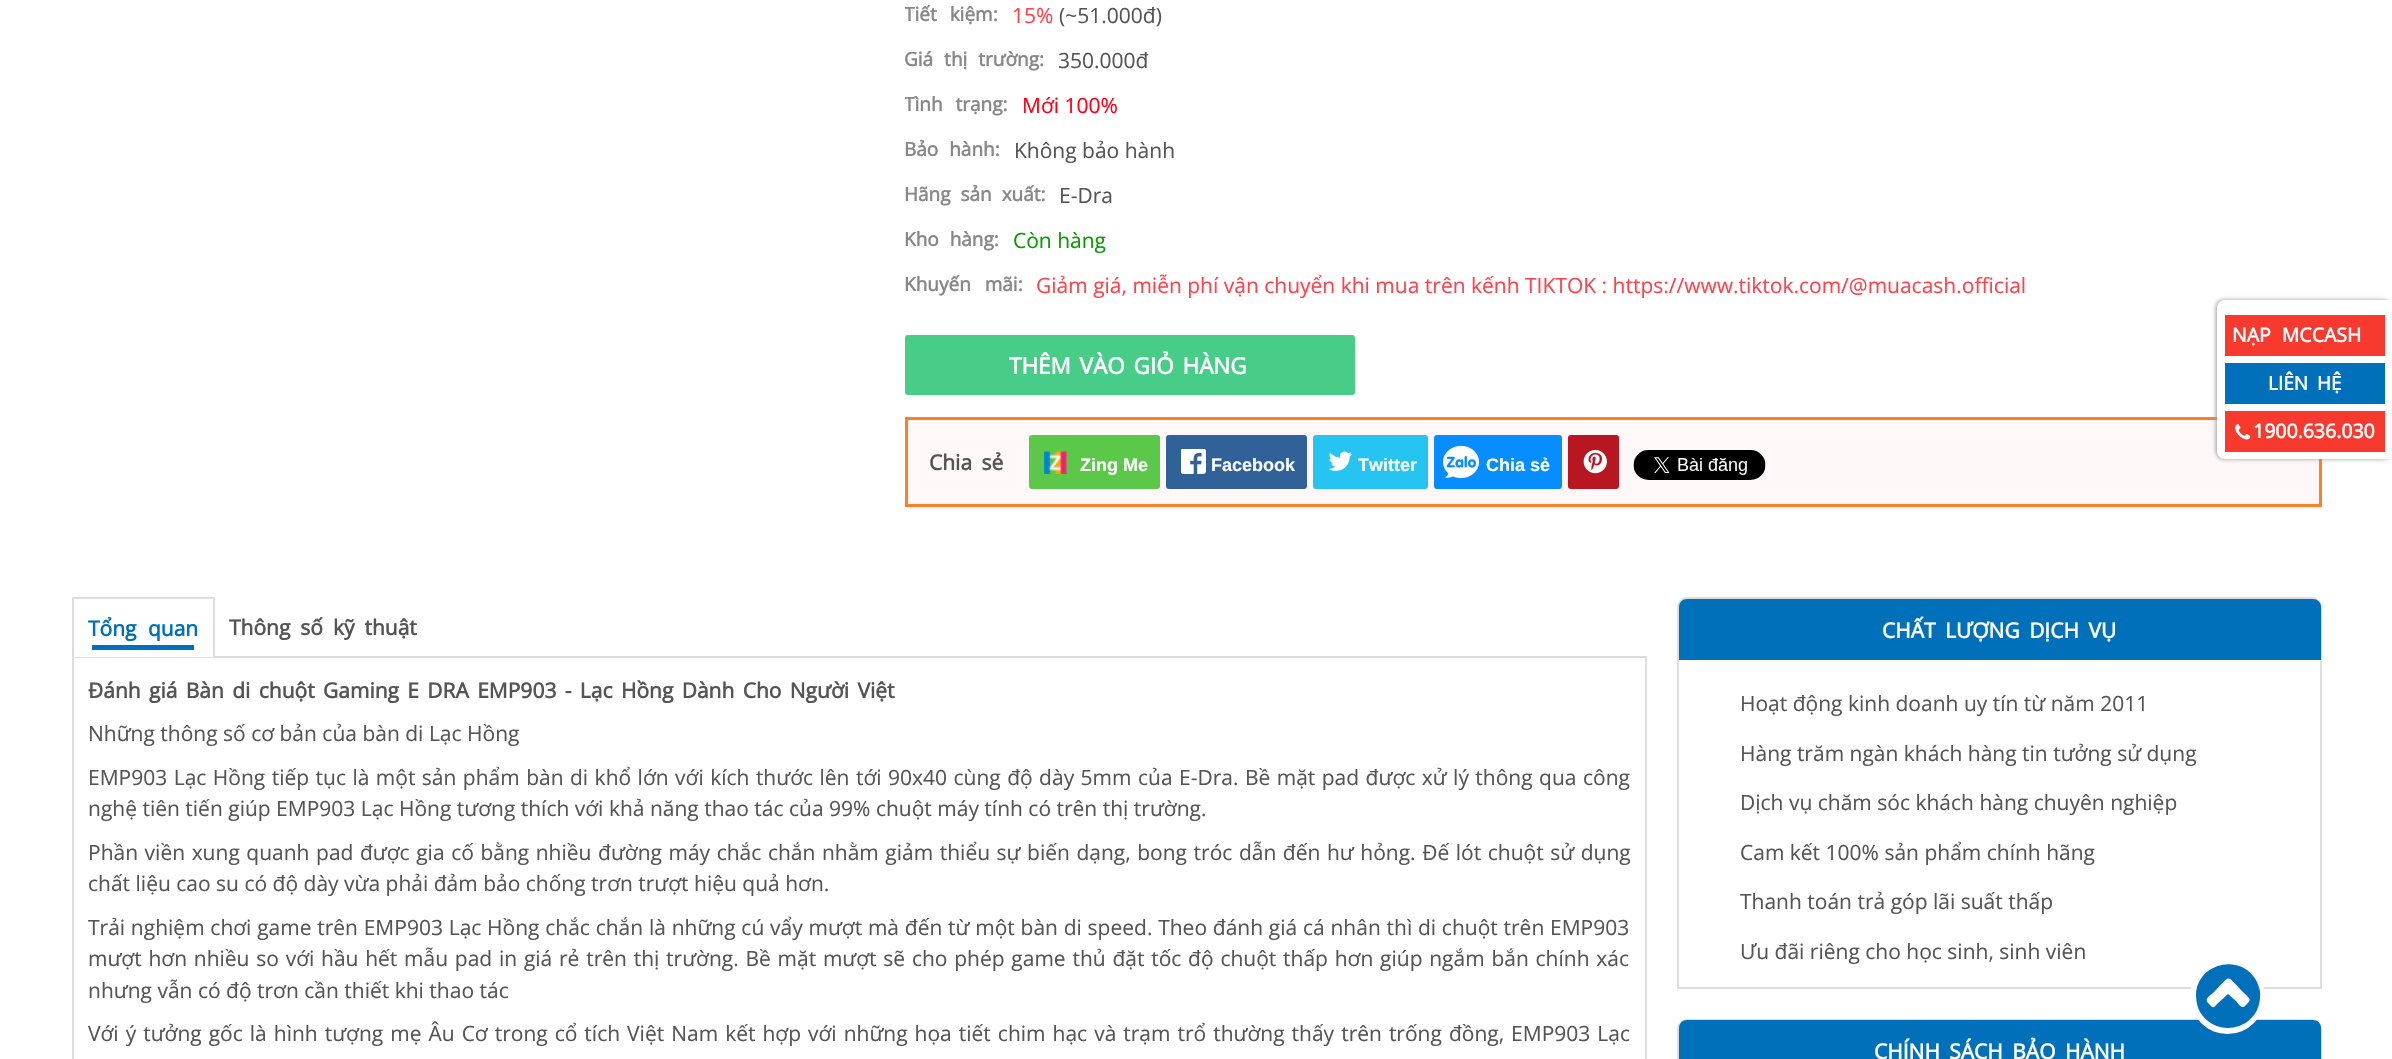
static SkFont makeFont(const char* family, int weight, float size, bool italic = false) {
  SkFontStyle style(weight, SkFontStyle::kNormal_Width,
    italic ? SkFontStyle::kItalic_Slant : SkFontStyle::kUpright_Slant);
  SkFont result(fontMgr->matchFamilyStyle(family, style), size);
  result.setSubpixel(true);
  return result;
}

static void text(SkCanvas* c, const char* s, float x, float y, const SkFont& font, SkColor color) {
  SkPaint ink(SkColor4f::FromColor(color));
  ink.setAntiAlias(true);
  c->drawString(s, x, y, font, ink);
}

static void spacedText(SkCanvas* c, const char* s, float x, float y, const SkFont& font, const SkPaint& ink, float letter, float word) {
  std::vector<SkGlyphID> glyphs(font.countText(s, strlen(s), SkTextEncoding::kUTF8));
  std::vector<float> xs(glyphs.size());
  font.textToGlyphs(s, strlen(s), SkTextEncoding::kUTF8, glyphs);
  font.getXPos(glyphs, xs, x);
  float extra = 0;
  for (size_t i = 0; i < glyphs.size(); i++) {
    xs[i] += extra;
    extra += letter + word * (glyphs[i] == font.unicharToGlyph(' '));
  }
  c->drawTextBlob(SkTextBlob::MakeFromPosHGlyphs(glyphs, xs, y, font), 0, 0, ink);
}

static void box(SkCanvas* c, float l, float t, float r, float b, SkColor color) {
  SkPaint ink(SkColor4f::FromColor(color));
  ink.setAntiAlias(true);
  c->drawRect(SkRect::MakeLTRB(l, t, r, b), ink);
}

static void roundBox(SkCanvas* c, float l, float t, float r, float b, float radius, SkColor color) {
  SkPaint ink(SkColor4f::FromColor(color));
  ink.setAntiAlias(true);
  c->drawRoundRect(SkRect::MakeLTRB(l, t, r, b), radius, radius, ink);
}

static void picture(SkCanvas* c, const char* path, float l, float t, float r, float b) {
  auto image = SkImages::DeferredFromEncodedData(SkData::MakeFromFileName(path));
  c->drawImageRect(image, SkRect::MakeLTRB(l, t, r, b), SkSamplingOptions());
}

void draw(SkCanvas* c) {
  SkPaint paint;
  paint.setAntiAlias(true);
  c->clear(0xffffffff);
  c->save();
  c->clipRect(SkRect::MakeLTRB(905, 0, 2322, 35));
  SkFont face1 = makeFont("Open Sans", 700, 19);
  paint.setColor(0xff888888);
  spacedText(c, "Tiết kiệm:", 904, 21, face1, paint, 0, 8);
  c->restore();
  SkFont face2 = makeFont("Open Sans", 400, 21);
  text(c, "15%", 1012, 23, face2, 0xffff424e);
  text(c, "(~51.000đ)", 1059, 23, face2, 0xff555555);
  spacedText(c, "Giá thị trường:", 904, 66, face1, paint, 0, 6);
  text(c, "350.000đ", 1058, 68, face2, 0xff555555);
  c->save();
  c->clipRect(SkRect::MakeLTRB(905, 84, 2322, 125));
  spacedText(c, "Tình trạng:", 904, 111, face1, paint, 0, 8);
  c->restore();
  text(c, "Mới 100%", 1022, 113, face2, 0xffff0013);
  spacedText(c, "Bảo hành:", 904, 156, face1, paint, 0, 6);
  text(c, "Không bảo hành", 1014, 158, face2, 0xff555555);
  spacedText(c, "Hãng sản xuất:", 904, 201, face1, paint, 0, 5);
  text(c, "E-Dra", 1059, 203, face2, 0xff555555);
  spacedText(c, "Kho hàng:", 904, 246, face1, paint, 0, 6);
  text(c, "Còn hàng", 1013, 248, face2, 0xff079b00);
  spacedText(c, "Khuyến mãi:", 904, 291, face1, paint, 0, 9);
  text(c, "Giảm giá, miễn phí vận chuyển khi mua trên kếnh TIKTOK : https://www.tiktok.com/@muacash.official", 1036, 293, face2, 0xffff424e);
  roundBox(c, 905, 335, 1355, 395, 3, 0xff48cd89);
  SkFont face3 = makeFont("Open Sans", 700, 22.5f);
  paint.setColor(0xffffffff);
  spacedText(c, "THÊM VÀO GIỎ HÀNG", 1009, 374, face3, paint, 0, 3);
  paint.setColor(0xfffff7f8);
  c->drawRect(SkRect::MakeLTRB(906.5f, 418.5f, 2320.5f, 505.5f), paint);
  paint.setStyle(SkPaint::kStroke_Style);
  paint.setStrokeWidth(3);
  paint.setColor(0xffff7e27);
  c->drawRect(SkRect::MakeLTRB(906.5f, 418.5f, 2320.5f, 505.5f), paint);
  SkFont face4 = makeFont("Open Sans", 700, 21);
  paint.setStyle(SkPaint::kFill_Style);
  paint.setColor(0xff555555);
  spacedText(c, "Chia sẻ", 929, 470, face4, paint, 0, 4);
  roundBox(c, 1029, 435, 1160, 489, 3, 0xff5cc84a);
  picture(c, "img_01.png", 1044, 451, 1067, 474);
  SkFont face5 = makeFont("Liberation Sans", 700, 18);
  text(c, "Zing Me", 1080, 471, face5, 0xffffffff);
  roundBox(c, 1166, 435, 1307, 489, 3, 0xff306199);
  picture(c, "img_02.png", 1181, 449, 1206, 474);
  text(c, "Facebook", 1211, 471, face5, 0xffffffff);
  roundBox(c, 1313, 435, 1428, 489, 3, 0xff26c4f1);
  picture(c, "img_03.png", 1328, 451, 1352, 471);
  text(c, "Twitter", 1358, 471, face5, 0xffffffff);
  roundBox(c, 1434, 435, 1562, 489, 3, 0xff068dff);
  picture(c, "img_04.png", 1443, 445, 1479, 479);
  text(c, "Chia sẻ", 1486, 471, face5, 0xffffffff);
  roundBox(c, 1568, 435, 1619, 489, 3, 0xffb81621);
  picture(c, "img_05.png", 1583, 449, 1607, 474);
  picture(c, "img_06.png", 1633, 450, 1766, 480);
  paint.setStyle(SkPaint::kStroke_Style);
  paint.setStrokeWidth(2);
  paint.setColor(0xffdddddd);
  c->drawRect(SkRect::MakeLTRB(73, 657, 1646, 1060), paint);
  box(c, 74, 656, 213, 657, 0xffffffff);
  box(c, 72, 597, 215, 599, 0xffdddddd);
  box(c, 213, 597, 215, 657, 0xffdddddd);
  box(c, 72, 597, 74, 657, 0xffdddddd);
  paint.setStyle(SkPaint::kFill_Style);
  paint.setColor(0xff0070ba);
  spacedText(c, "Tổng quan", 88, 636, face4, paint, 0, 6);
  box(c, 92, 645, 194, 650, 0xff0070ba);
  paint.setColor(0xff555555);
  spacedText(c, "Thông số kỹ thuật", 229, 635, face4, paint, 0, 4.5f);
  spacedText(c, "Đánh giá Bàn di chuột Gaming E DRA EMP903 - Lạc Hồng Dành Cho Người Việt", 88, 698, face4, paint, 0, 2.9f);
  text(c, "Những thông số cơ bản của bàn di Lạc Hồng", 88, 741, face2, 0xff555555);
  spacedText(c, "EMP903 Lạc Hồng tiếp tục là một sản phẩm bàn di khổ lớn với kích thước lên tới 90x40 cùng độ dày 5mm của E-Dra. Bề mặt pad được xử lý thông qua công", 88, 785, face2, paint, 0, 1);
  text(c, "nghệ tiên tiến giúp EMP903 Lạc Hồng tương thích với khả năng thao tác của 99% chuột máy tính có trên thị trường.", 88, 816, face2, 0xff555555);
  spacedText(c, "Phần viền xung quanh pad được gia cố bằng nhiều đường máy chắc chắn nhằm giảm thiểu sự biến dạng, bong tróc dẫn đến hư hỏng. Đế lót chuột sử dụng", 88, 860, face2, paint, 0, 1.1f);
  text(c, "chất liệu cao su có độ dày vừa phải đảm bảo chống trơn trượt hiệu quả hơn.", 88, 891, face2, 0xff555555);
  spacedText(c, "Trải nghiệm chơi game trên EMP903 Lạc Hồng chắc chắn là những cú vẩy mượt mà đến từ một bàn di speed. Theo đánh giá cá nhân thì di chuột trên EMP903", 88, 935, face2, paint, 0, 0.3f);
  spacedText(c, "mượt hơn nhiều so với hầu hết mẫu pad in giá rẻ trên thị trường. Bề mặt mượt sẽ cho phép game thủ đặt tốc độ chuột thấp hơn giúp ngắm bắn chính xác", 88, 966, face2, paint, 0, 1.3f);
  text(c, "nhưng vẫn có độ trơn cần thiết khi thao tác", 88, 998, face2, 0xff555555);
  spacedText(c, "Với ý tưởng gốc là hình tượng mẹ Âu Cơ trong cổ tích Việt Nam kết hợp với những họa tiết chim hạc và trạm trổ thường thấy trên trống đồng, EMP903 Lạc", 88, 1041, face2, paint, 0, 1.55f);
  paint.setStyle(SkPaint::kStroke_Style);
  paint.setColor(0xffdddddd);
  c->drawPath(SkPathBuilder().moveTo(1688, 598).lineTo(2311, 598).cubicTo(2316.5f, 598, 2321, 602.5f, 2321, 608).lineTo(2321, 988).lineTo(1678, 988).lineTo(1678, 608).cubicTo(1678, 602.5f, 1682.5f, 598, 1688, 598).close().detach(), paint);
  paint.setStyle(SkPaint::kFill_Style);
  paint.setColor(0xff0070ba);
  c->drawPath(SkPathBuilder().moveTo(1687, 599).lineTo(2313, 599).cubicTo(2317.5f, 599, 2321, 602.5f, 2321, 607).lineTo(2321, 660).lineTo(1679, 660).lineTo(1679, 607).cubicTo(1679, 602.5f, 1682.5f, 599, 1687, 599).close().detach(), paint);
  paint.setColor(0xffffffff);
  spacedText(c, "CHẤT LƯỢNG DỊCH VỤ", 1882, 638, face4, paint, 0, 4);
  text(c, "Hoạt động kinh doanh uy tín từ năm 2011", 1740, 711, face2, 0xff555555);
  text(c, "Hàng trăm ngàn khách hàng tin tưởng sử dụng", 1740, 761, face2, 0xff555555);
  text(c, "Dịch vụ chăm sóc khách hàng chuyên nghiệp", 1740, 810, face2, 0xff555555);
  text(c, "Cam kết 100% sản phẩm chính hãng", 1740, 860, face2, 0xff555555);
  text(c, "Thanh toán trả góp lãi suất thấp", 1740, 909, face2, 0xff555555);
  text(c, "Ưu đãi riêng cho học sinh, sinh viên", 1740, 959, face2, 0xff555555);
  paint.setStyle(SkPaint::kStroke_Style);
  paint.setColor(0xffdddddd);
  c->drawPath(SkPathBuilder().moveTo(1688, 1020).lineTo(2311, 1020).cubicTo(2316.5f, 1020, 2321, 1024.5f, 2321, 1030).lineTo(2321, 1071).lineTo(1678, 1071).lineTo(1678, 1030).cubicTo(1678, 1024.5f, 1682.5f, 1020, 1688, 1020).close().detach(), paint);
  paint.setStyle(SkPaint::kFill_Style);
  paint.setColor(0xff0070ba);
  c->drawPath(SkPathBuilder().moveTo(1687, 1020).lineTo(2313, 1020).cubicTo(2317.5f, 1020, 2321, 1023.5f, 2321, 1028).lineTo(2321, 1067).lineTo(1679, 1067).lineTo(1679, 1028).cubicTo(1679, 1023.5f, 1682.5f, 1020, 1687, 1020).close().detach(), paint);
  paint.setColor(0xffffffff);
  spacedText(c, "CHÍNH SÁCH BẢO HÀNH", 1874, 1059, face4, paint, 0, 4);
  paint.setColor(0xff999999);
  paint.setMaskFilter(SkMaskFilter::MakeBlur(kNormal_SkBlurStyle, 2));
  c->drawRoundRect(SkRect::MakeLTRB(2216, 300, 2391, 459), 8, 8, paint);
  paint.setMaskFilter(nullptr);
  paint.setColor(0xffffffff);
  c->drawPath(SkPathBuilder().moveTo(2225, 300).lineTo(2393, 300).lineTo(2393, 459).lineTo(2225, 459).cubicTo(2220.5f, 459, 2217, 455.5f, 2217, 451).lineTo(2217, 308).cubicTo(2217, 303.5f, 2220.5f, 300, 2225, 300).close().detach(), paint);
  box(c, 2225, 315, 2385, 356, 0xfff7392e);
  SkFont face6 = makeFont("Open Sans", 700, 19.5f);
  spacedText(c, "NẠP MCCASH", 2232, 342, face6, paint, 0, 6);
  box(c, 2225, 363, 2385, 404, 0xff0070ba);
  spacedText(c, "LIÊN HỆ", 2268, 390, face1, paint, 0, 4);
  box(c, 2225, 411, 2385, 452, 0xfff7392e);
  picture(c, "img_07.png", 2235, 424, 2251, 440);
  text(c, "1900.636.030", 2253, 438, face6, 0xffffffff);
  c->drawCircle(2227.5f, 996.5f, 37.5f, paint);
  paint.setColor(0xff0070ba);
  c->drawPath(SkPathBuilder().moveTo(2245, 1006).cubicTo(2252, 999, 2251, 1000, 2243, 992).cubicTo(2225, 974, 2232, 974, 2214, 992).cubicTo(2210, 996, 2204, 998, 2208, 1003).cubicTo(2213, 1008, 2213, 1009, 2217, 1004).lineTo(2228, 994).lineTo(2237, 1002).cubicTo(2238, 1004, 2242, 1009, 2245, 1006).close().moveTo(2256, 980).cubicTo(2259, 986, 2261, 992, 2260, 998).cubicTo(2258, 1030, 2216, 1039, 2200, 1012).cubicTo(2197, 1007, 2196, 1000, 2196, 994).cubicTo(2198, 963, 2240, 953, 2256, 980).close().detach(), paint);
}
